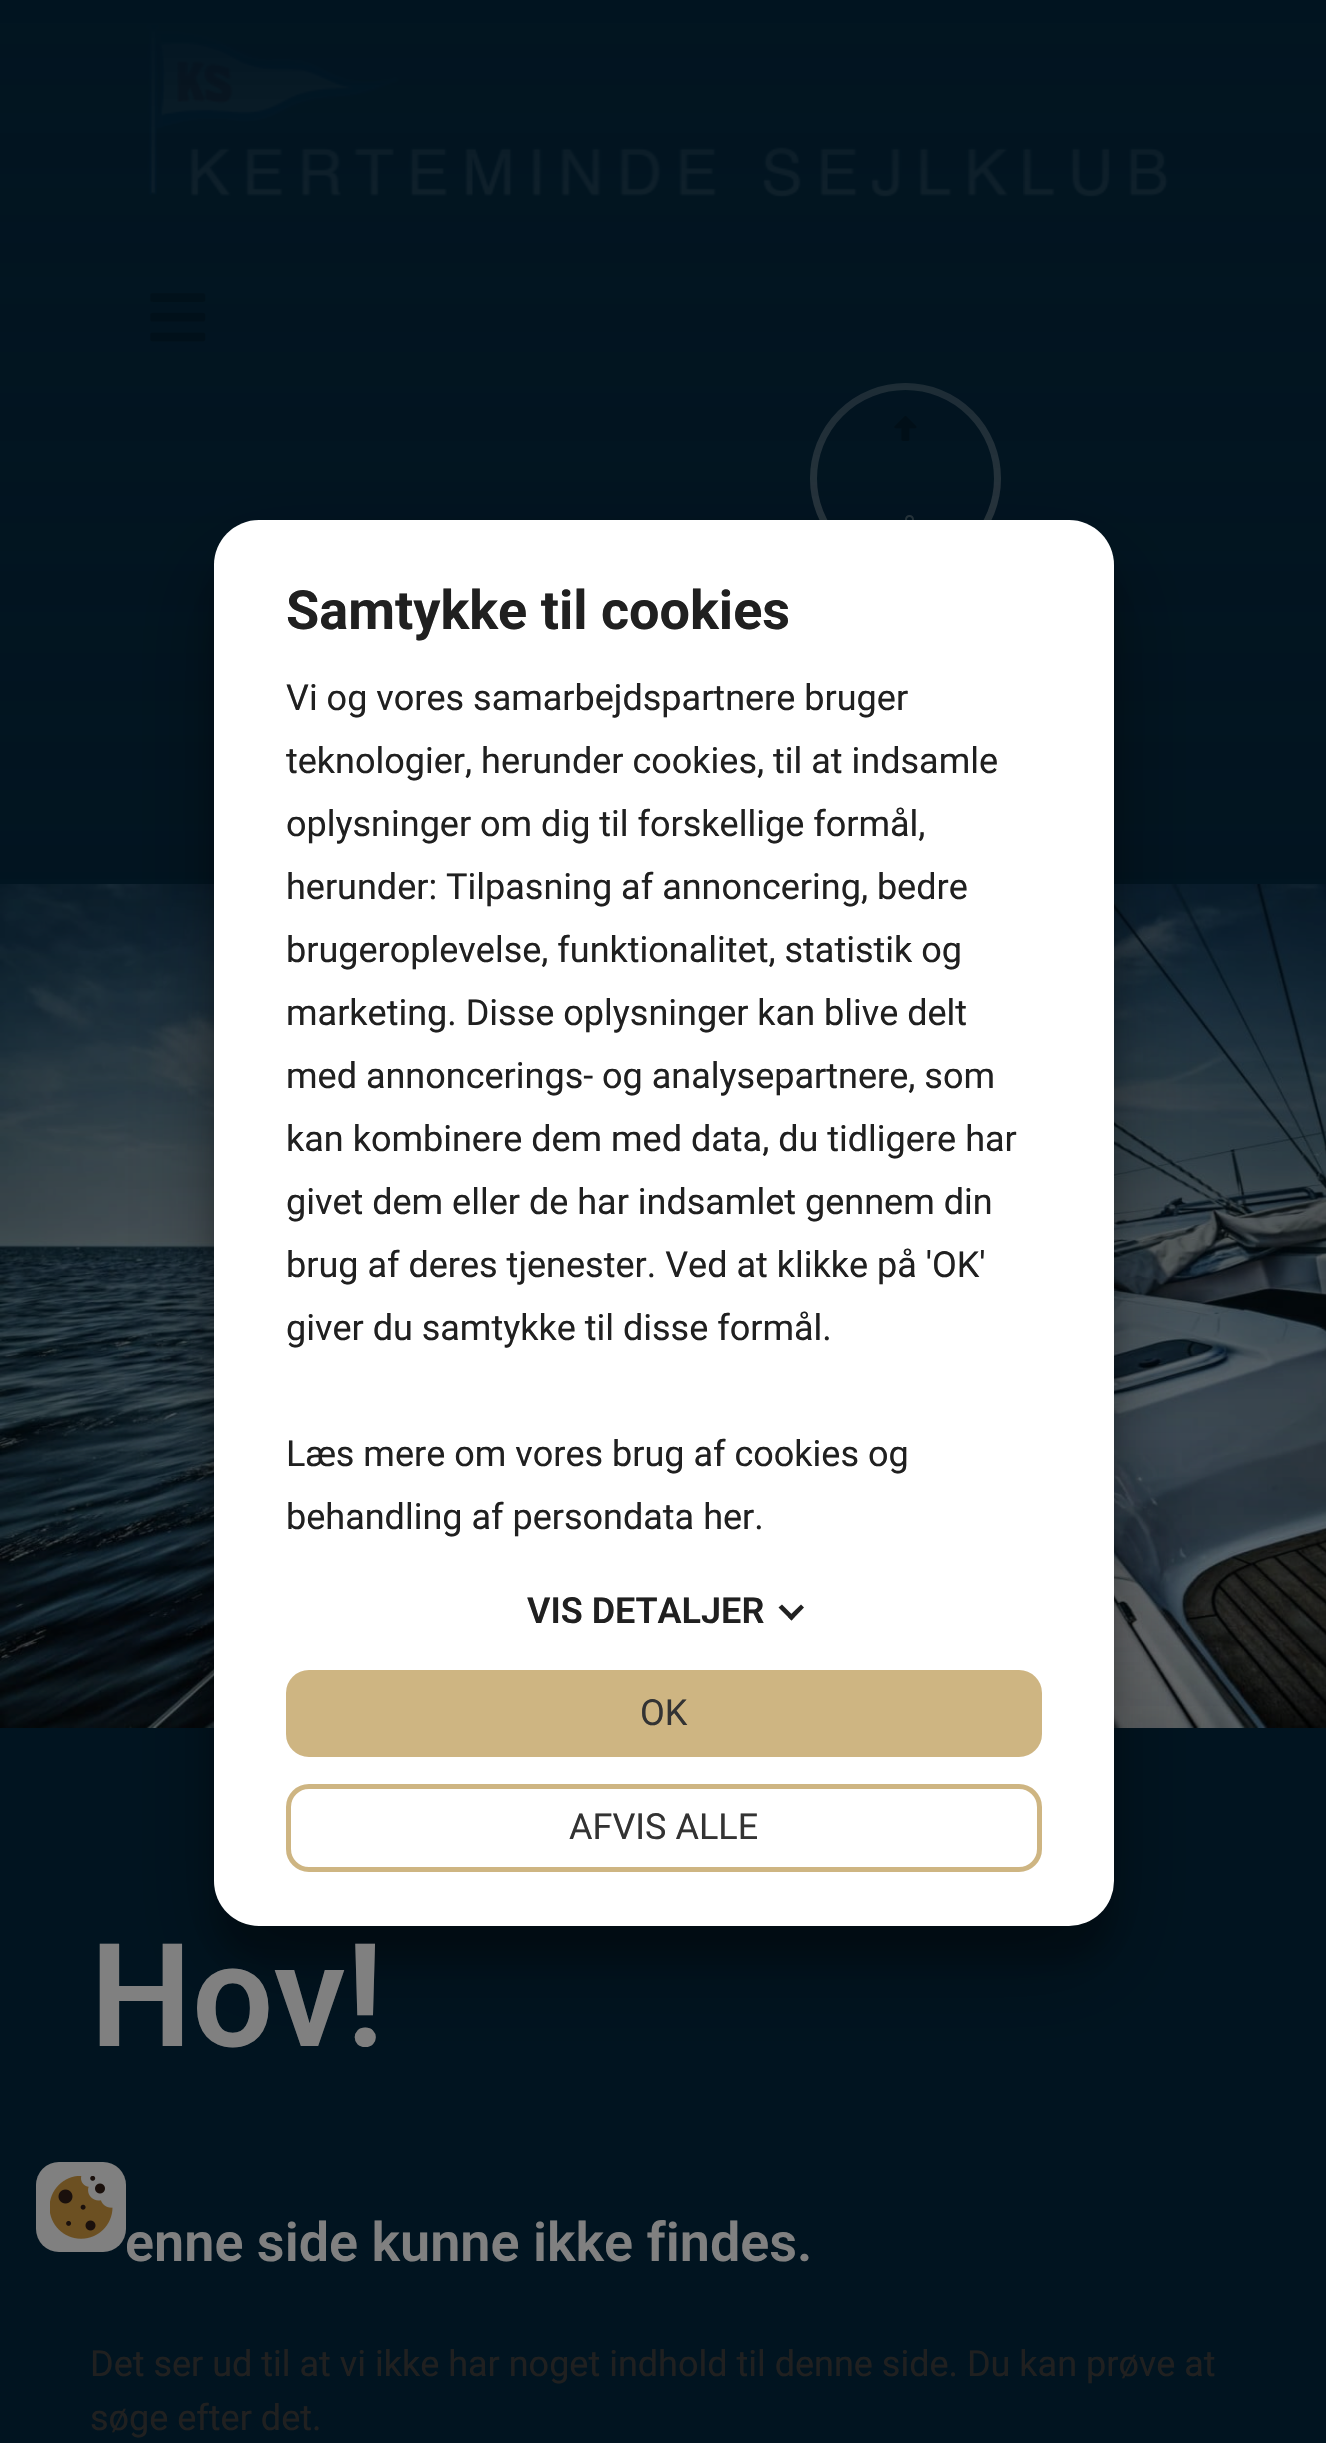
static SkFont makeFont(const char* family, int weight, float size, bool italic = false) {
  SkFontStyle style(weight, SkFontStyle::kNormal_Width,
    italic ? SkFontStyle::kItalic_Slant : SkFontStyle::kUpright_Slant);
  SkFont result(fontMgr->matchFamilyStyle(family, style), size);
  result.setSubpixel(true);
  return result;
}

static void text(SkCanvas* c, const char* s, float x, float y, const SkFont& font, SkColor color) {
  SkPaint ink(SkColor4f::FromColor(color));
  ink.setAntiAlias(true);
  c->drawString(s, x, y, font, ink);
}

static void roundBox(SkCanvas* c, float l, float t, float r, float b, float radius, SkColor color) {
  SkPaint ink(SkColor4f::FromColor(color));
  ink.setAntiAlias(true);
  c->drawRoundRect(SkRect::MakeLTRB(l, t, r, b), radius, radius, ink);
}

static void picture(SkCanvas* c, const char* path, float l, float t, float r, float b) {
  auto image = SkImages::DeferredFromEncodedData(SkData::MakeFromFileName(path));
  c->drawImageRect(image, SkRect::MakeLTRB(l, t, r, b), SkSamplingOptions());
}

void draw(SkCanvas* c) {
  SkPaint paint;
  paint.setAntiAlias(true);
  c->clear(0xff011420);
  picture(c, "img_02.png", 0, 884, 1326, 1728);
  picture(c, "img_03.png", 146, 23, 1169, 198);
  picture(c, "img_04.png", 150, 293, 206, 342);
  paint.setStyle(SkPaint::kStroke_Style);
  paint.setStrokeWidth(7);
  paint.setColor(0xff808080);
  c->drawCircle(905.5f, 478.5f, 92, paint);
  picture(c, "img_05.png", 894, 415, 917, 441);
  paint.setStrokeWidth(2);
  c->drawCircle(909.5f, 519.5f, 3.5f, paint);
  paint.setStyle(SkPaint::kFill_Style);
  {
    const SkColor colors[] = {0xff011420, 0x00011420};
    const float stops[] = {0, 1};
    const SkPoint ends[] = {{664, 0}, {664, 1744}};
    paint.setShader(SkGradientShader::MakeLinear(ends, colors, stops, 2, SkTileMode::kClamp));
    paint.setAlpha(255);
  }
  c->drawRect(SkRect::MakeLTRB(0, 23, 1326, 1706), paint);
  paint.setShader(nullptr);
  paint.setColor(0x38000000);
  paint.setMaskFilter(SkMaskFilter::MakeBlur(kNormal_SkBlurStyle, 13.5f));
  c->drawRoundRect(SkRect::MakeLTRB(214, 554, 1114, 1960), 45, 45, paint);
  paint.setMaskFilter(nullptr);
  paint.setColor(0x4d000000);
  paint.setMaskFilter(SkMaskFilter::MakeBlur(kNormal_SkBlurStyle, 43));
  c->drawRoundRect(SkRect::MakeLTRB(214, 563, 1114, 1969), 45, 45, paint);
  paint.setMaskFilter(nullptr);
  roundBox(c, 214, 520, 1114, 1926, 45, 0xffffffff);
  SkFont face1 = makeFont("Roboto", 700, 54);
  text(c, "Samtykke til cookies", 286, 629, face1, 0xff202020);
  SkFont face2 = makeFont("Roboto", 400, 36);
  text(c, "Vi og vores samarbejdspartnere bruger", 286, 710, face2, 0xff202020);
  text(c, "teknologier, herunder cookies, til at indsamle", 286, 773, face2, 0xff202020);
  text(c, "oplysninger om dig til forskellige formål,", 286, 836, face2, 0xff202020);
  text(c, "herunder: Tilpasning af annoncering, bedre", 286, 899, face2, 0xff202020);
  text(c, "brugeroplevelse, funktionalitet, statistik og", 286, 962, face2, 0xff202020);
  text(c, "marketing. Disse oplysninger kan blive delt", 286, 1025, face2, 0xff202020);
  text(c, "med annoncerings- og analysepartnere, som", 286, 1088, face2, 0xff202020);
  text(c, "kan kombinere dem med data, du tidligere har", 286, 1151, face2, 0xff202020);
  text(c, "givet dem eller de har indsamlet gennem din", 286, 1214, face2, 0xff202020);
  text(c, "brug af deres tjenester. Ved at klikke på 'OK'", 286, 1277, face2, 0xff202020);
  text(c, "giver du samtykke til disse formål.", 286, 1340, face2, 0xff202020);
  text(c, "Læs mere om vores brug af cookies og", 286, 1466, face2, 0xff202020);
  text(c, "behandling af persondata her.", 286, 1529, face2, 0xff202020);
  SkFont face3 = makeFont("Roboto", 600, 36);
  text(c, "VIS DETALJER", 527, 1623, face3, 0xff202020);
  paint.setColor(0xff212121);
  c->drawPath(SkPathBuilder().moveTo(801, 1604.5f).lineTo(804, 1607.5f).lineTo(791.5f, 1620.5f).lineTo(788, 1617).close().detach(), paint);
  c->drawPath(SkPathBuilder().moveTo(782, 1604.5f).lineTo(794.5f, 1617).lineTo(791.5f, 1620.5f).lineTo(778.5f, 1607.5f).close().detach(), paint);
  paint.setColor(0xffceb582);
  c->drawRoundRect(SkRect::MakeLTRB(288.5f, 1672.5f, 1039.5f, 1754.5f), 20.5f, 20.5f, paint);
  paint.setStyle(SkPaint::kStroke_Style);
  paint.setStrokeWidth(5);
  c->drawRoundRect(SkRect::MakeLTRB(288.5f, 1672.5f, 1039.5f, 1754.5f), 20.5f, 20.5f, paint);
  text(c, "OK", 640, 1725, face2, 0xff333333);
  c->drawRoundRect(SkRect::MakeLTRB(288.5f, 1786.5f, 1039.5f, 1869.5f), 20.5f, 20.5f, paint);
  text(c, "AFVIS ALLE", 569, 1839, face2, 0xff333333);
  roundBox(c, 36, 2162, 126, 2252, 23, 0xff808080);
  picture(c, "img_01.png", 50, 2176, 113, 2239);
  SkFont face4 = makeFont("Roboto", 600, 144);
  text(c, "Hov!", 90, 2046, face4, 0xff808080);
  SkFont face5 = makeFont("Roboto", 600, 54);
  text(c, "enne side kunne ikke findes.", 125, 2261, face5, 0xff808080);
  text(c, "Det ser ud til at vi ikke har noget indhold til denne side. Du kan prøve at", 90, 2376, face2, 0xff202020);
  text(c, "søge efter det.", 90, 2430, face2, 0xff202020);
}
